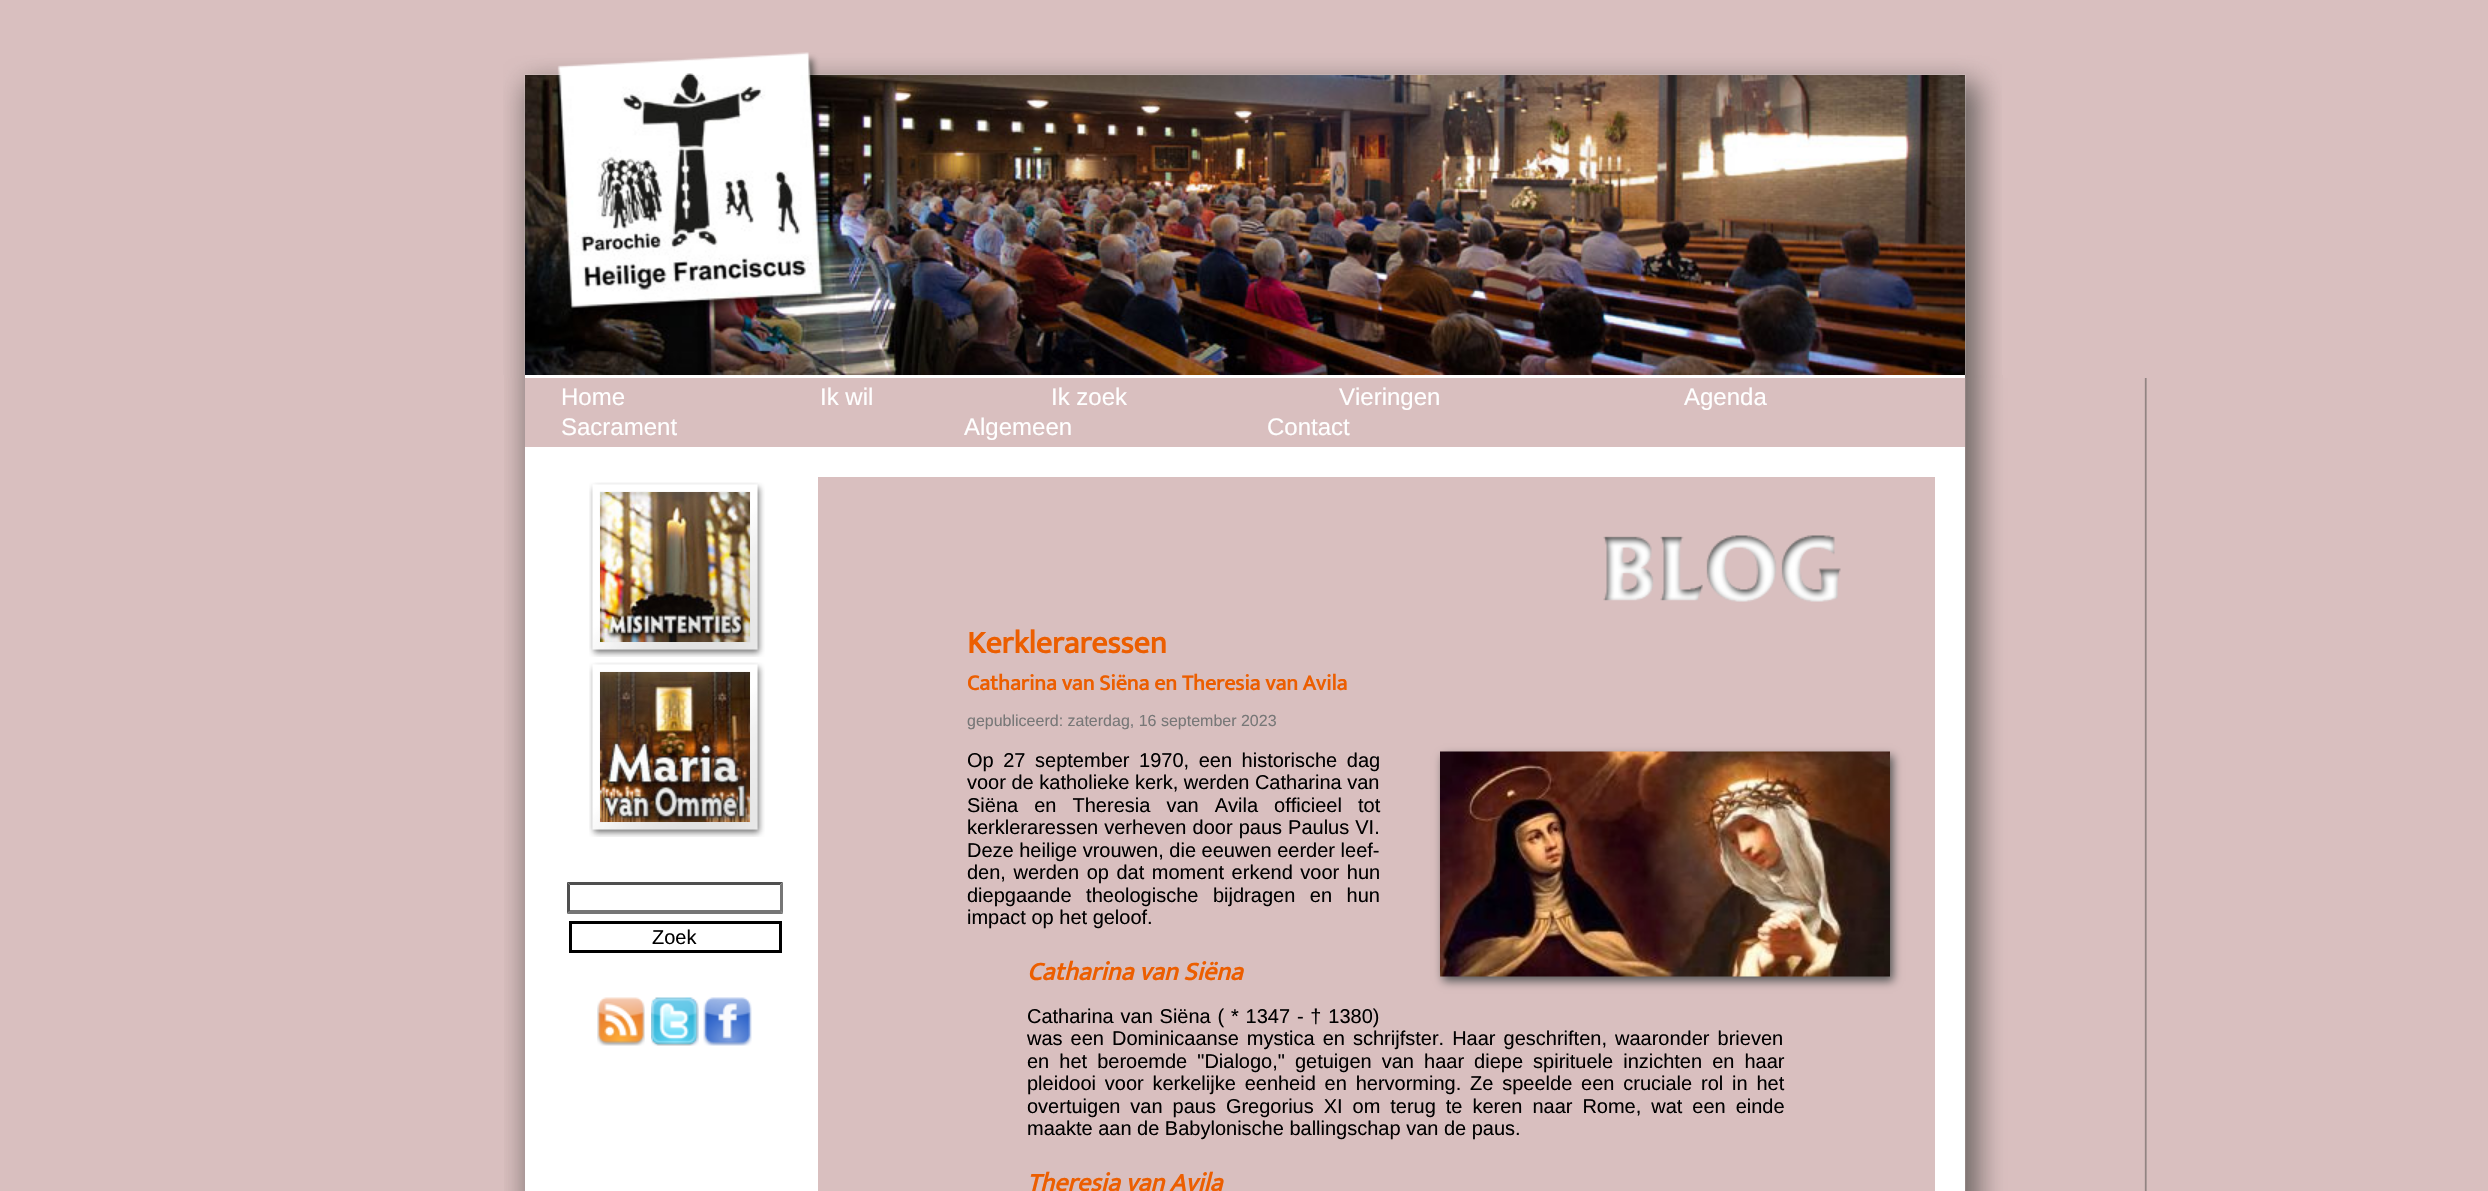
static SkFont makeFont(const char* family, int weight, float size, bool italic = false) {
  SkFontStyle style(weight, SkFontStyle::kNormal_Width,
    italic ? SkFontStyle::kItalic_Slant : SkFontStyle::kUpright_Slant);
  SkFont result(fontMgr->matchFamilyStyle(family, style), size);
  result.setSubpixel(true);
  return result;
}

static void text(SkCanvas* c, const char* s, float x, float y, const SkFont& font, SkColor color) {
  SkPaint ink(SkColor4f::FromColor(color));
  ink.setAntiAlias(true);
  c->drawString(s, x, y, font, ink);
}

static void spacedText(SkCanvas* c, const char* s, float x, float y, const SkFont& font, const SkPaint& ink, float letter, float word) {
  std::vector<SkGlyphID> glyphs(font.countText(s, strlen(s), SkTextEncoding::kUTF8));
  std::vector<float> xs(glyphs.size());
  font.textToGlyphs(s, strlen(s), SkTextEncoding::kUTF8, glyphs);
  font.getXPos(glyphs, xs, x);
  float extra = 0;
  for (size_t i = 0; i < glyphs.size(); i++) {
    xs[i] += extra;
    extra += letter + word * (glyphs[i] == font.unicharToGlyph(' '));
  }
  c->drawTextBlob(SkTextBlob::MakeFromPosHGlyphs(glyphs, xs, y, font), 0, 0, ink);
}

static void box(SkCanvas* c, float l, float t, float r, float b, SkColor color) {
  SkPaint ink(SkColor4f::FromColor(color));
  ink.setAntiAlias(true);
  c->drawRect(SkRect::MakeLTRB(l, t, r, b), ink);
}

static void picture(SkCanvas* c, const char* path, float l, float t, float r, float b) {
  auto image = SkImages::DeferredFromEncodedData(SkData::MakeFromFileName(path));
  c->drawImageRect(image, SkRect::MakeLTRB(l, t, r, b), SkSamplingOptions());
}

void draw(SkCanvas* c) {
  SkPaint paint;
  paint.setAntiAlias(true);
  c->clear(0xffd9bfbf);
  picture(c, "img_01.png", 503, 52, 2002, 375);
  picture(c, "img_02.png", 525, 75, 1965, 375);
  picture(c, "img_03.png", 504, 375, 525, 378);
  box(c, 525, 375, 1965, 378, 0xffffffff);
  picture(c, "img_04.png", 1965, 375, 2003, 378);
  picture(c, "img_05.png", 504, 378, 525, 447);
  SkFont face1 = makeFont("Liberation Sans", 400, 24);
  text(c, "Home", 561, 405, face1, 0xffffffff);
  text(c, "Ik wil", 820, 405, face1, 0xffffffff);
  text(c, "Ik zoek", 1051, 405, face1, 0xffffffff);
  text(c, "Vieringen", 1339, 405, face1, 0xffffffff);
  text(c, "Agenda", 1684, 405, face1, 0xffffffff);
  text(c, "Sacrament", 561, 435, face1, 0xffffffff);
  text(c, "Algemeen", 964, 435, face1, 0xffffffff);
  text(c, "Contact", 1267, 435, face1, 0xffffffff);
  picture(c, "img_06.png", 1965, 378, 2147, 447);
  picture(c, "img_07.png", 504, 447, 525, 1191);
  box(c, 525, 447, 1965, 1191, 0xffffffff);
  picture(c, "img_08.png", 600, 492, 750, 642);
  picture(c, "img_09.png", 589, 482, 765, 657);
  picture(c, "img_10.png", 600, 672, 750, 822);
  picture(c, "img_11.png", 589, 662, 765, 837);
  paint.setColor(0xff4f4f4f);
  c->drawPath(SkPathBuilder().moveTo(567, 882).lineTo(783, 882).lineTo(780, 885).lineTo(570, 885).close().detach(), paint);
  paint.setColor(0xff767676);
  c->drawPath(SkPathBuilder().moveTo(783, 882).lineTo(783, 913.5f).lineTo(780, 910.5f).lineTo(780, 885).close().detach(), paint);
  c->drawPath(SkPathBuilder().moveTo(783, 914).lineTo(567, 914).lineTo(570, 910).lineTo(780, 910).close().detach(), paint);
  paint.setColor(0xff4f4f4f);
  c->drawPath(SkPathBuilder().moveTo(567, 913.5f).lineTo(567, 882).lineTo(570, 885).lineTo(570, 910.5f).close().detach(), paint);
  paint.setStyle(SkPaint::kStroke_Style);
  paint.setStrokeWidth(3);
  paint.setColor(0xff000000);
  c->drawRect(SkRect::MakeLTRB(570.5f, 922.5f, 780.5f, 951.5f), paint);
  SkFont face2 = makeFont("Liberation Sans", 400, 20);
  text(c, "Zoek", 652, 944, face2, 0xff000000);
  picture(c, "img_12.png", 597, 997, 645, 1046);
  picture(c, "img_13.png", 651, 997, 699, 1046);
  picture(c, "img_14.png", 703, 997, 752, 1046);
  box(c, 818, 477, 1935, 1191, 0xffd9bfbf);
  picture(c, "img_15.png", 1603, 535, 1841, 602);
  SkFont face3 = makeFont("Mukta", 700, 32);
  text(c, "Kerkleraressen", 967, 653, face3, 0xffec5e00);
  SkFont face4 = makeFont("Mukta", 700, 22);
  text(c, "Catharina van Siëna en Theresia van Avila", 967, 690, face4, 0xffec5e00);
  SkFont face5 = makeFont("Liberation Sans", 400, 16);
  text(c, "gepubliceerd: zaterdag, 16 september 2023", 967, 726, face5, 0xff777777);
  paint.setStyle(SkPaint::kFill_Style);
  spacedText(c, "Op 27 september 1970, een historische dag", 967, 767, face2, paint, 0, 4);
  text(c, "voor de katholieke kerk, werden Catharina van", 967, 789, face2, 0xff000000);
  spacedText(c, "Siëna en Theresia van Avila officieel tot", 967, 812, face2, paint, 0, 10.5f);
  spacedText(c, "kerkleraressen verheven door paus Paulus VI.", 967, 834, face2, paint, 0, 0.5f);
  text(c, "Deze heilige vrouwen, die eeuwen eerder leef-", 967, 857, face2, 0xff000000);
  spacedText(c, "den, werden op dat moment erkend voor hun", 967, 879, face2, paint, 0, 2);
  spacedText(c, "diepgaande theologische bijdragen en hun", 967, 902, face2, paint, 0, 9);
  text(c, "impact op het geloof.", 967, 924, face2, 0xff000000);
  paint.setColor(0xff555555);
  paint.setMaskFilter(SkMaskFilter::MakeBlur(kNormal_SkBlurStyle, 4.5f));
  c->drawRect(SkRect::MakeLTRB(1443, 756, 1893, 981), paint);
  paint.setMaskFilter(nullptr);
  picture(c, "img_16.png", 1440, 751, 1890, 977);
  SkFont face6 = makeFont("Mukta", 700, 26, true);
  text(c, "Catharina van Siëna", 1027, 980, face6, 0xffec5e00);
  paint.setColor(0xff000000);
  spacedText(c, "Catharina van Siëna ( * 1347 - † 1380)", 1027, 1023, face2, paint, 0, 1.25f);
  spacedText(c, "was een Dominicaanse mystica en schrijfster. Haar geschriften, waaronder brieven", 1027, 1045, face2, paint, 0, 2.5f);
  spacedText(c, "en het beroemde \"Dialogo,\" getuigen van haar diepe spirituele inzichten en haar", 1027, 1068, face2, paint, 0, 4.5f);
  spacedText(c, "pleidooi voor kerkelijke eenheid en hervorming. Ze speelde een cruciale rol in het", 1027, 1090, face2, paint, 0, 3.25f);
  spacedText(c, "overtuigen van paus Gregorius XI om terug te keren naar Rome, wat een einde", 1027, 1113, face2, paint, 0, 4.4f);
  text(c, "maakte aan de Babylonische ballingschap van de paus.", 1027, 1135, face2, 0xff000000);
  text(c, "Theresia van Avila", 1027, 1191, face6, 0xffec5e00);
  picture(c, "img_17.png", 1965, 447, 2147, 1191);
}
